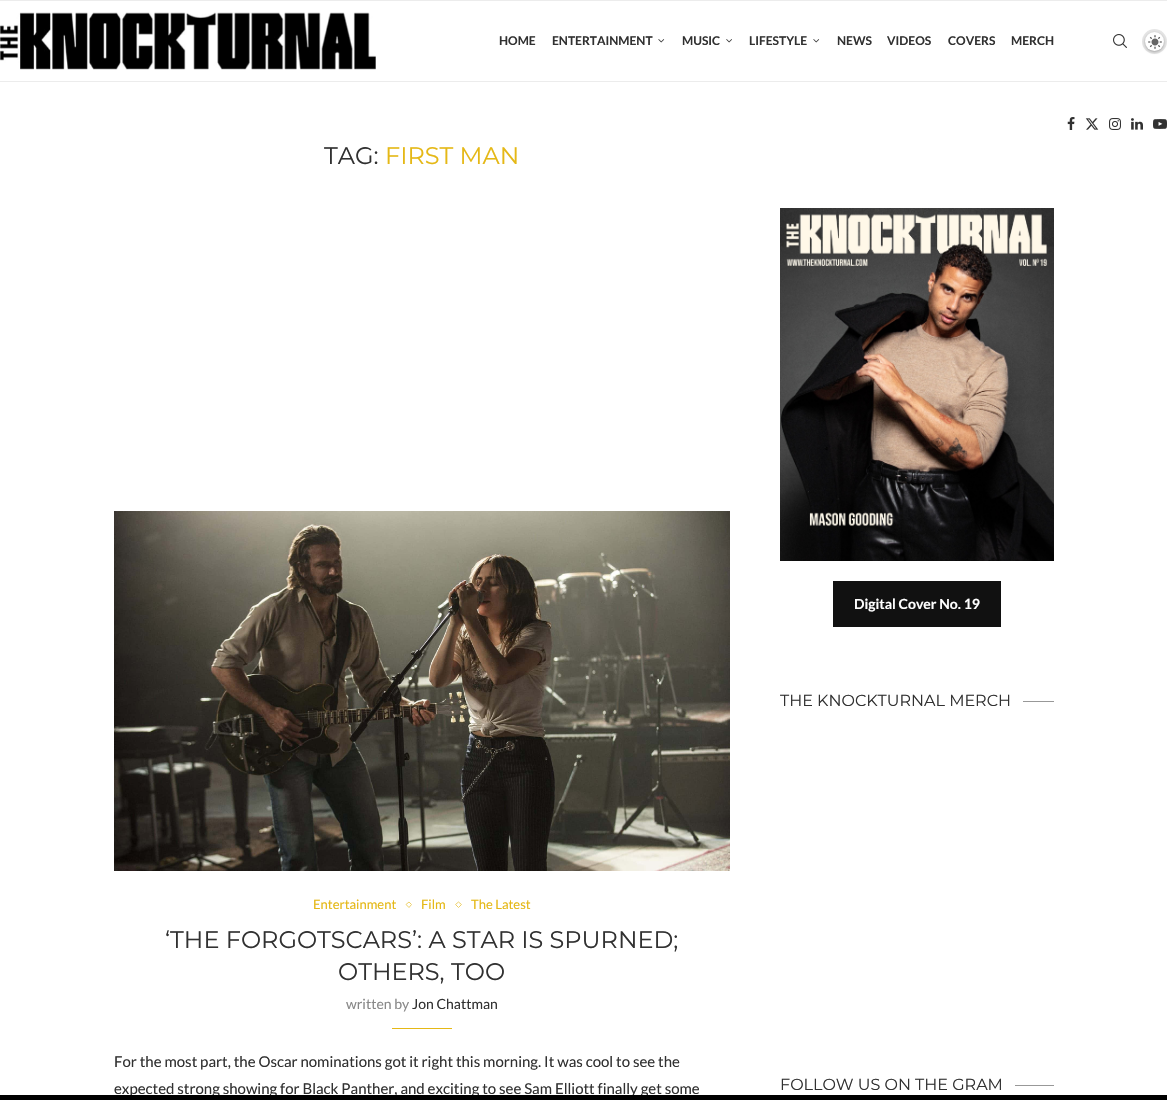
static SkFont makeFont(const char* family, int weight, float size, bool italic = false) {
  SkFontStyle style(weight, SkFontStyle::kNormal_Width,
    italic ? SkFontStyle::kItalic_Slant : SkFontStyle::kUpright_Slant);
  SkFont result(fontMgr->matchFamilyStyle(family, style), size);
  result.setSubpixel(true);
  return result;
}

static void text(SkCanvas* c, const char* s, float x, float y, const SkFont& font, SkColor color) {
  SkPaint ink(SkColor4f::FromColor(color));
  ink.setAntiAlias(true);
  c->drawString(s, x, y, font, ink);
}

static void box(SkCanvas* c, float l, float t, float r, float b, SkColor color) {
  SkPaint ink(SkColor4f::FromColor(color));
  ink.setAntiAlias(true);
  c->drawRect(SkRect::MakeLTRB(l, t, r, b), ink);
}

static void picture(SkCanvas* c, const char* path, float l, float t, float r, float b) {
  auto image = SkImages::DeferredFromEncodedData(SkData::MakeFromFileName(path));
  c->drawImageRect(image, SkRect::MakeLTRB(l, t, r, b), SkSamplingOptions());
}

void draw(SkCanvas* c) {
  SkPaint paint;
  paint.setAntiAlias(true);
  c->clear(0xffffffff);
  box(c, 0, 0, 1167, 1, 0xffececec);
  box(c, 0, 81, 1167, 82, 0xffececec);
  picture(c, "img_01.png", 0, 12, 376, 70);
  SkFont face1 = makeFont("Lato", 700, 12);
  text(c, "HOME", 499, 45, face1, 0xff313131);
  text(c, "ENTERTAINMENT", 552, 45, face1, 0xff313131);
  picture(c, "img_02.png", 658, 39, 665, 43);
  text(c, "MUSIC", 682, 45, face1, 0xff313131);
  picture(c, "img_03.png", 726, 39, 732, 43);
  text(c, "LIFESTYLE", 749, 45, face1, 0xff313131);
  picture(c, "img_04.png", 813, 39, 820, 43);
  text(c, "NEWS", 837, 45, face1, 0xff313131);
  text(c, "VIDEOS", 887, 45, face1, 0xff313131);
  text(c, "COVERS", 948, 45, face1, 0xff313131);
  text(c, "MERCH", 1011, 45, face1, 0xff313131);
  picture(c, "img_05.png", 1113, 34, 1127, 48);
  paint.setColor(0xffe6e6e6);
  c->drawCircle(1154.5f, 41.5f, 12.5f, paint);
  paint.setColor(0x4d000000);
  paint.setMaskFilter(SkMaskFilter::MakeBlur(kNormal_SkBlurStyle, 1.5f));
  c->drawRoundRect(SkRect::MakeLTRB(1145, 33, 1164, 52), 9.5f, 9.5f, paint);
  paint.setMaskFilter(nullptr);
  paint.setColor(0xffffffff);
  c->drawCircle(1154.5f, 41.5f, 9.5f, paint);
  picture(c, "img_06.png", 1148, 35, 1162, 49);
  picture(c, "img_07.png", 1067, 117, 1075, 130);
  picture(c, "img_08.png", 1085, 118, 1099, 130);
  picture(c, "img_09.png", 1109, 118, 1121, 130);
  picture(c, "img_10.png", 1131, 118, 1143, 130);
  picture(c, "img_11.png", 1153, 119, 1167, 129);
  SkFont face2 = makeFont("Montserrat", 400, 24);
  text(c, "TAG:", 324, 164, face2, 0xff313131);
  text(c, "FIRST MAN", 385, 164, face2, 0xffe5b816);
  picture(c, "img_12.png", 114, 511, 730, 871);
  SkFont face3 = makeFont("Lato", 400, 13);
  text(c, "Entertainment", 313, 909, face3, 0xffe5b816);
  paint.setStyle(SkPaint::kStroke_Style);
  paint.setStrokeWidth(1);
  paint.setColor(0xffeed168);
  c->drawPath(SkPathBuilder().moveTo(409, 902).lineTo(411.5f, 904.5f).lineTo(409, 907.5f).lineTo(406, 904.5f).close().detach(), paint);
  text(c, "Film", 421, 909, face3, 0xffe5b816);
  c->drawPath(SkPathBuilder().moveTo(458.5f, 902).lineTo(461.5f, 904.5f).lineTo(458.5f, 907.5f).lineTo(455.5f, 904.5f).close().detach(), paint);
  text(c, "The Latest", 471, 909, face3, 0xffe5b816);
  text(c, "‘THE FORGOTSCARS’: A STAR IS SPURNED;", 165, 948, face2, 0xff313131);
  text(c, "OTHERS, TOO", 338, 980, face2, 0xff313131);
  SkFont face4 = makeFont("Lato", 400, 14);
  text(c, "written by", 346, 1009, face4, 0xff888888);
  text(c, "Jon Chattman", 412, 1009, face4, 0xff313131);
  box(c, 392, 1028, 452, 1029, 0xffe5b816);
  SkFont face5 = makeFont("Lato", 400, 15);
  text(c, "For the most part, the Oscar nominations got it right this morning. It was cool to see the", 114, 1067, face5, 0xff313131);
  text(c, "expected strong showing for Black Panther, and exciting to see Sam Elliott finally get some", 114, 1094, face5, 0xff313131);
  picture(c, "img_13.png", 780, 208, 1054, 561);
  box(c, 833, 581, 1001, 627, 0xff111111);
  SkFont face6 = makeFont("Lato", 700, 14);
  text(c, "Digital Cover No. 19", 854, 609, face6, 0xffffffff);
  SkFont face7 = makeFont("Montserrat", 400, 16);
  text(c, "THE KNOCKTURNAL MERCH", 780, 706, face7, 0xff313131);
  box(c, 1023, 701, 1054, 702, 0xff989898);
  text(c, "FOLLOW US ON THE GRAM", 780, 1090, face7, 0xff313131);
  box(c, 1015, 1085, 1054, 1086, 0xff989898);
  box(c, 0, 1095, 1167, 1100, 0xff000000);
}
